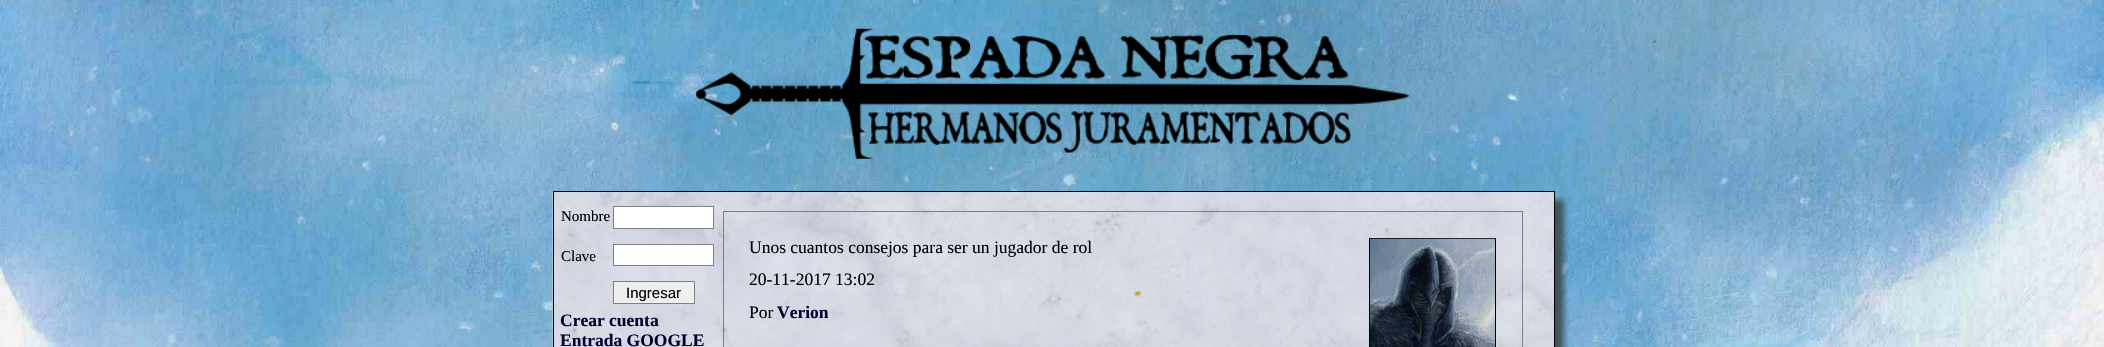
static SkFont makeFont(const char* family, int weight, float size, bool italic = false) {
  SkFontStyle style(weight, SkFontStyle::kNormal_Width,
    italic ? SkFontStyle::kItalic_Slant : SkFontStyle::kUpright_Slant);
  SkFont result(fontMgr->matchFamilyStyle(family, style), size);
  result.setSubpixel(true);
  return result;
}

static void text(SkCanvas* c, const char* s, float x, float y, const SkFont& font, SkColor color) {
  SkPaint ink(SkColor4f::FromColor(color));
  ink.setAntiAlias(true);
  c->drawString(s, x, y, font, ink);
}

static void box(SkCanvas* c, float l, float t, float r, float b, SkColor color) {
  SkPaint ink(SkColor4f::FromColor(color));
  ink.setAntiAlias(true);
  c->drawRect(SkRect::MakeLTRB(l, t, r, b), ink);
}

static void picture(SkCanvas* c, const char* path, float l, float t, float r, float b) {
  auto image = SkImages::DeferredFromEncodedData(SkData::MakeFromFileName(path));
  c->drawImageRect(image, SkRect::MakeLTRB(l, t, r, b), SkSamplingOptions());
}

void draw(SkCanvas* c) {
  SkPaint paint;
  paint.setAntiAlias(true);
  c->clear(0xffffffff);
  picture(c, "img_01.png", 0, 0, 2104, 347);
  picture(c, "img_02.png", 696, 28, 1409, 159);
  paint.setColor(0xbf323232);
  paint.setMaskFilter(SkMaskFilter::MakeBlur(kNormal_SkBlurStyle, 3));
  c->drawRect(SkRect::MakeLTRB(711, 200, 1564, 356), paint);
  paint.setMaskFilter(nullptr);
  picture(c, "img_04.png", 705, 192, 1554, 347);
  paint.setStyle(SkPaint::kStroke_Style);
  paint.setStrokeWidth(1);
  paint.setColor(0xff000000);
  c->drawRect(SkRect::MakeLTRB(703.5f, 191.5f, 1554.5f, 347.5f), paint);
  picture(c, "img_03.png", 552, 191, 705, 347);
  box(c, 553, 191, 705, 192, 0xff000000);
  box(c, 553, 191, 554, 347, 0xff000000);
  SkFont face1 = makeFont("Liberation Serif", 400, 15);
  text(c, "Nombre", 561, 221, face1, 0xff000000);
  paint.setStyle(SkPaint::kFill_Style);
  paint.setColor(0xffffffff);
  c->drawRect(SkRect::MakeLTRB(613.5f, 206.5f, 713.5f, 228.5f), paint);
  paint.setStyle(SkPaint::kStroke_Style);
  paint.setColor(0xff808080);
  c->drawRect(SkRect::MakeLTRB(613.5f, 206.5f, 713.5f, 228.5f), paint);
  text(c, "Clave", 561, 261, face1, 0xff000000);
  paint.setStyle(SkPaint::kFill_Style);
  paint.setColor(0xffffffff);
  c->drawRect(SkRect::MakeLTRB(613.5f, 244.5f, 713.5f, 265.5f), paint);
  paint.setStyle(SkPaint::kStroke_Style);
  paint.setColor(0xff808080);
  c->drawRect(SkRect::MakeLTRB(613.5f, 244.5f, 713.5f, 265.5f), paint);
  paint.setStyle(SkPaint::kFill_Style);
  paint.setColor(0xffefefef);
  c->drawRect(SkRect::MakeLTRB(613.5f, 281.5f, 694.5f, 303.5f), paint);
  paint.setStyle(SkPaint::kStroke_Style);
  paint.setColor(0xff808080);
  c->drawRect(SkRect::MakeLTRB(613.5f, 281.5f, 694.5f, 303.5f), paint);
  SkFont face2 = makeFont("Liberation Sans", 400, 15);
  text(c, "Ingresar", 626, 298, face2, 0xff000000);
  SkFont face3 = makeFont("Liberation Serif", 700, 17.5f);
  text(c, "Crear cuenta", 560, 326, face3, 0xff000033);
  text(c, "Entrada GOOGLE", 560, 346, face3, 0xff000033);
  c->drawRect(SkRect::MakeLTRB(723.5f, 211.5f, 1522.5f, 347.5f), paint);
  SkFont face4 = makeFont("Liberation Serif", 400, 17.5f);
  text(c, "Unos cuantos consejos para ser un jugador de rol", 749, 253, face4, 0xff000000);
  paint.setColor(0xff000000);
  c->drawRect(SkRect::MakeLTRB(1369.5f, 238.5f, 1495.5f, 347.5f), paint);
  picture(c, "img_05.png", 1370, 238, 1495, 347);
  text(c, "20-11-2017 13:02", 749, 285, face4, 0xff000000);
  text(c, "Por", 749, 318, face4, 0xff000000);
  text(c, "Verion", 777, 318, face3, 0xff000033);
}
